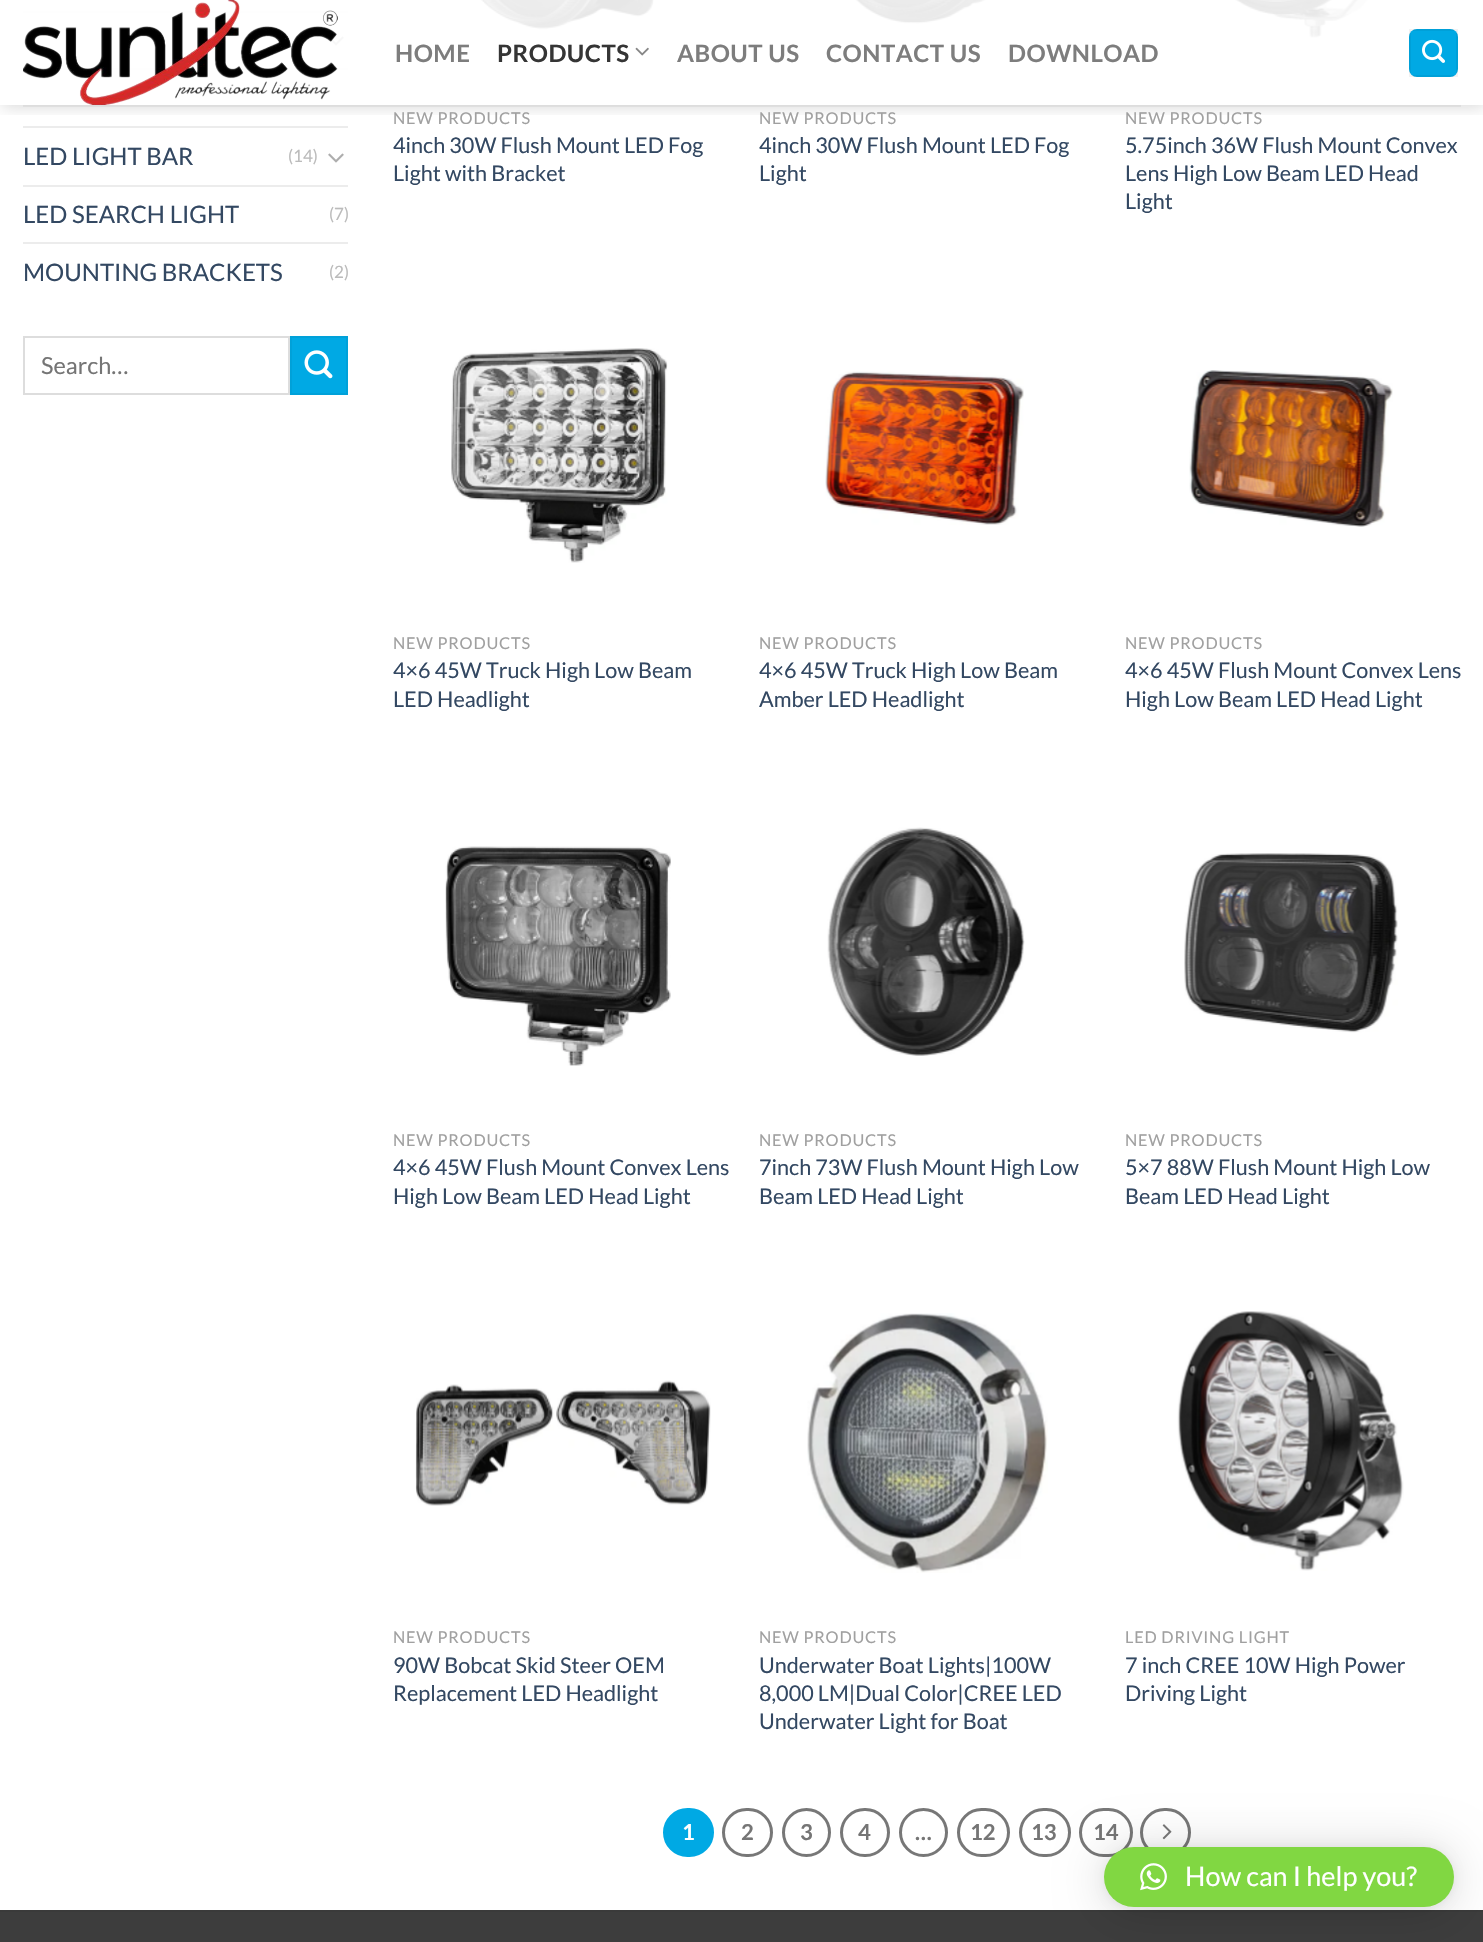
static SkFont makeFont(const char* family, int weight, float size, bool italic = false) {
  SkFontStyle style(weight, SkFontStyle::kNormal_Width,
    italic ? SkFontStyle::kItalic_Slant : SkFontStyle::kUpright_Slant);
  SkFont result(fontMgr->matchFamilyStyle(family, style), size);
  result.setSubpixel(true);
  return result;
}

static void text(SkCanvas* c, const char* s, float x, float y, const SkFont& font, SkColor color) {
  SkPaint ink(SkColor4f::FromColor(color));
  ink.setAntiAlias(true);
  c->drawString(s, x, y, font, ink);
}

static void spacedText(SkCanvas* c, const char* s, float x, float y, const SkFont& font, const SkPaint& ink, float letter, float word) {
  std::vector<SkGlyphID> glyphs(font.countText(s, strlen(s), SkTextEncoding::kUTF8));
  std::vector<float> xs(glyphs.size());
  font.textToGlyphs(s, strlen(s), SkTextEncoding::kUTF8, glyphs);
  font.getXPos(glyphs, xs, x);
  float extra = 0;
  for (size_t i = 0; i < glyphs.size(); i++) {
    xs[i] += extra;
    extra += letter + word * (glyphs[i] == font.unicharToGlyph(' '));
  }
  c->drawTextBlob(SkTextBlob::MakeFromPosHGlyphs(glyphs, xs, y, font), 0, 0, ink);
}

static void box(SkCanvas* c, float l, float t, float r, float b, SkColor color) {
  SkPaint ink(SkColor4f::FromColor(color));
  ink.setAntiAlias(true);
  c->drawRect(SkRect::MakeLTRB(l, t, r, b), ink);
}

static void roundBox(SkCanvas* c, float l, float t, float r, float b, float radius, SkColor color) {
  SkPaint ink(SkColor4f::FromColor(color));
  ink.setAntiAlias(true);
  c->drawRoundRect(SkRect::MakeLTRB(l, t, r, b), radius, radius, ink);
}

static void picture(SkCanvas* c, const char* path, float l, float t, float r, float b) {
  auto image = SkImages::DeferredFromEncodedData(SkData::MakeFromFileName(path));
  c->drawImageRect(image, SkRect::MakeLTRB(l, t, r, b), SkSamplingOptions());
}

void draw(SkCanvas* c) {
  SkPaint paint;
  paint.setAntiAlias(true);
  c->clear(0xffffffff);
  box(c, 23, 11, 348, 13, 0xffececec);
  picture(c, "img_04.png", 328, 36, 344, 46);
  box(c, 23, 68, 348, 70, 0xffececec);
  box(c, 23, 126, 348, 128, 0xffececec);
  picture(c, "img_06.png", 480, 0, 655, 30);
  picture(c, "img_07.png", 855, 0, 986, 24);
  picture(c, "img_08.png", 1234, 0, 1369, 38);
  c->save();
  c->clipRect(SkRect::MakeLTRB(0, 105, 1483, 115));
  paint.setColor(0x26000000);
  paint.setMaskFilter(SkMaskFilter::MakeBlur(kNormal_SkBlurStyle, 7.5f));
  c->drawRect(SkRect::MakeLTRB(2, 2, 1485, 107), paint);
  paint.setMaskFilter(nullptr);
  c->restore();
  box(c, 23, 0, 1369, 70, 0xe6ffffff);
  picture(c, "img_01.png", 23, 0, 338, 105);
  SkFont face1 = makeFont("Lato", 700, 24);
  paint.setColor(0xff7d7d7d);
  spacedText(c, "HOME", 395, 62, face1, paint, 0.5f, 0);
  paint.setColor(0xff353535);
  spacedText(c, "PRODUCTS", 497, 62, face1, paint, 0.5f, 0);
  picture(c, "img_02.png", 635, 47, 649, 56);
  paint.setColor(0xff7d7d7d);
  spacedText(c, "ABOUT US", 677, 62, face1, paint, 0.5f, 0);
  spacedText(c, "CONTACT US", 826, 62, face1, paint, 0.5f, 0);
  spacedText(c, "DOWNLOAD", 1008, 62, face1, paint, 0.5f, 0);
  roundBox(c, 1409, 29, 1458, 77, 8, 0xff00a9e4);
  paint.setStyle(SkPaint::kStroke_Style);
  paint.setStrokeWidth(2);
  paint.setColor(0x0d000000);
  c->drawRect(SkRect::MakeLTRB(1410, 30, 1457, 76), paint);
  picture(c, "img_03.png", 1422, 39, 1445, 63);
  box(c, 23, 105, 1461, 107, 0x1a777777);
  SkFont face2 = makeFont("Lato", 400, 24);
  text(c, "LED LIGHT BAR", 23, 165, face2, 0xff334862);
  SkFont face3 = makeFont("Lato", 400, 17);
  text(c, "(14)", 288, 162, face3, 0xffbbbbbb);
  picture(c, "img_04.png", 328, 153, 344, 163);
  box(c, 23, 185, 348, 187, 0xffececec);
  text(c, "LED SEARCH LIGHT", 23, 223, face2, 0xff334862);
  text(c, "(7)", 329, 220, face3, 0xffbbbbbb);
  box(c, 23, 242, 348, 244, 0xffececec);
  text(c, "MOUNTING BRACKETS", 23, 281, face2, 0xff334862);
  text(c, "(2)", 329, 278, face3, 0xffbbbbbb);
  paint.setColor(0xffdddddd);
  c->drawRect(SkRect::MakeLTRB(24, 337, 289, 394), paint);
  SkFont face4 = makeFont("Lato", 400, 23.5f);
  text(c, "Search…", 41, 374, face4, 0xff757575);
  paint.setStyle(SkPaint::kFill_Style);
  paint.setColor(0xff00a9e4);
  c->drawRect(SkRect::MakeLTRB(291, 337, 347, 394), paint);
  paint.setStyle(SkPaint::kStroke_Style);
  paint.setColor(0xff00a1d9);
  c->drawRect(SkRect::MakeLTRB(291, 337, 347, 394), paint);
  picture(c, "img_05.png", 304, 350, 333, 379);
  SkFont face5 = makeFont("Lato", 400, 16.25f);
  paint.setStyle(SkPaint::kFill_Style);
  paint.setColor(0xffa0a0a0);
  spacedText(c, "NEW PRODUCTS", 393, 124, face5, paint, 0.8f, 0);
  SkFont face6 = makeFont("Lato", 400, 21.6f);
  text(c, "4inch 30W Flush Mount LED Fog", 393, 153, face6, 0xff334862);
  text(c, "Light with Bracket", 393, 181, face6, 0xff334862);
  spacedText(c, "NEW PRODUCTS", 759, 124, face5, paint, 0.8f, 0);
  text(c, "4inch 30W Flush Mount LED Fog", 759, 153, face6, 0xff334862);
  text(c, "Light", 759, 181, face6, 0xff334862);
  spacedText(c, "NEW PRODUCTS", 1125, 124, face5, paint, 0.8f, 0);
  text(c, "5.75inch 36W Flush Mount Convex", 1125, 153, face6, 0xff334862);
  text(c, "Lens High Low Beam LED Head", 1125, 181, face6, 0xff334862);
  text(c, "Light", 1125, 209, face6, 0xff334862);
  picture(c, "img_09.png", 451, 348, 668, 563);
  spacedText(c, "NEW PRODUCTS", 393, 649, face5, paint, 0.8f, 0);
  text(c, "4×6 45W Truck High Low Beam", 393, 678, face6, 0xff334862);
  text(c, "LED Headlight", 393, 707, face6, 0xff334862);
  picture(c, "img_10.png", 825, 371, 1024, 525);
  spacedText(c, "NEW PRODUCTS", 759, 649, face5, paint, 0.8f, 0);
  text(c, "4×6 45W Truck High Low Beam", 759, 678, face6, 0xff334862);
  text(c, "Amber LED Headlight", 759, 707, face6, 0xff334862);
  picture(c, "img_11.png", 1189, 370, 1393, 527);
  spacedText(c, "NEW PRODUCTS", 1125, 649, face5, paint, 0.8f, 0);
  text(c, "4×6 45W Flush Mount Convex Lens", 1125, 678, face6, 0xff334862);
  text(c, "High Low Beam LED Head Light", 1125, 707, face6, 0xff334862);
  picture(c, "img_12.png", 445, 846, 671, 1066);
  spacedText(c, "NEW PRODUCTS", 393, 1146, face5, paint, 0.8f, 0);
  text(c, "4×6 45W Flush Mount Convex Lens", 393, 1175, face6, 0xff334862);
  text(c, "High Low Beam LED Head Light", 393, 1204, face6, 0xff334862);
  picture(c, "img_13.png", 827, 827, 1025, 1056);
  spacedText(c, "NEW PRODUCTS", 759, 1146, face5, paint, 0.8f, 0);
  text(c, "7inch 73W Flush Mount High Low", 759, 1175, face6, 0xff334862);
  text(c, "Beam LED Head Light", 759, 1204, face6, 0xff334862);
  picture(c, "img_14.png", 1184, 853, 1398, 1033);
  spacedText(c, "NEW PRODUCTS", 1125, 1146, face5, paint, 0.8f, 0);
  text(c, "5×7 88W Flush Mount High Low", 1125, 1175, face6, 0xff334862);
  text(c, "Beam LED Head Light", 1125, 1204, face6, 0xff334862);
  picture(c, "img_15.png", 415, 1380, 711, 1506);
  spacedText(c, "NEW PRODUCTS", 393, 1643, face5, paint, 0.8f, 0);
  text(c, "90W Bobcat Skid Steer OEM", 393, 1673, face6, 0xff334862);
  text(c, "Replacement LED Headlight", 393, 1701, face6, 0xff334862);
  picture(c, "img_16.png", 807, 1313, 1048, 1573);
  spacedText(c, "NEW PRODUCTS", 759, 1643, face5, paint, 0.8f, 0);
  text(c, "Underwater Boat Lights|100W", 759, 1673, face6, 0xff334862);
  text(c, "8,000 LM|Dual Color|CREE LED", 759, 1701, face6, 0xff334862);
  text(c, "Underwater Light for Boat", 759, 1729, face6, 0xff334862);
  picture(c, "img_17.png", 1177, 1311, 1404, 1571);
  spacedText(c, "LED DRIVING LIGHT", 1125, 1643, face5, paint, 0.8f, 0);
  text(c, "7 inch CREE 10W High Power", 1125, 1673, face6, 0xff334862);
  text(c, "Driving Light", 1125, 1701, face6, 0xff334862);
  paint.setColor(0xff00a9e4);
  c->drawRoundRect(SkRect::MakeLTRB(664.5f, 1809.5f, 712.5f, 1855.5f), 23, 23, paint);
  paint.setStyle(SkPaint::kStroke_Style);
  paint.setStrokeWidth(3);
  c->drawRoundRect(SkRect::MakeLTRB(664.5f, 1809.5f, 712.5f, 1855.5f), 23, 23, paint);
  SkFont face7 = makeFont("Lato", 700, 22);
  text(c, "1", 682, 1840, face7, 0xffffffff);
  paint.setColor(0xff777777);
  c->drawRoundRect(SkRect::MakeLTRB(723.5f, 1809.5f, 771.5f, 1855.5f), 23, 23, paint);
  text(c, "2", 741, 1840, face7, 0xff757575);
  c->drawCircle(806.5f, 1832.5f, 23, paint);
  text(c, "3", 800, 1840, face7, 0xff757575);
  c->drawRoundRect(SkRect::MakeLTRB(841.5f, 1809.5f, 888.5f, 1855.5f), 23, 23, paint);
  text(c, "4", 858, 1840, face7, 0xff757575);
  c->drawCircle(923.5f, 1832.5f, 23, paint);
  text(c, "…", 915, 1840, face7, 0xff757575);
  c->drawRoundRect(SkRect::MakeLTRB(958.5f, 1809.5f, 1008.5f, 1855.5f), 23, 23, paint);
  text(c, "12", 970, 1840, face7, 0xff757575);
  c->drawRoundRect(SkRect::MakeLTRB(1020.5f, 1809.5f, 1069.5f, 1855.5f), 23, 23, paint);
  text(c, "13", 1031, 1840, face7, 0xff757575);
  c->drawRoundRect(SkRect::MakeLTRB(1080.5f, 1809.5f, 1131.5f, 1855.5f), 23, 23, paint);
  text(c, "14", 1093, 1840, face7, 0xff757575);
  c->drawRoundRect(SkRect::MakeLTRB(1141.5f, 1809.5f, 1189.5f, 1855.5f), 23, 23, paint);
  picture(c, "img_18.png", 1162, 1824, 1172, 1840);
  box(c, 0, 1912, 1483, 1942, 0xff3d3d3d);
  box(c, 0, 1910, 1483, 1912, 0xff3a3a3a);
  paint.setStyle(SkPaint::kFill_Style);
  paint.setColor(0x29000000);
  paint.setMaskFilter(SkMaskFilter::MakeBlur(kNormal_SkBlurStyle, 24));
  c->drawRoundRect(SkRect::MakeLTRB(1104, 1850, 1454, 1910), 30, 30, paint);
  paint.setMaskFilter(nullptr);
  paint.setColor(0x0f000000);
  paint.setMaskFilter(SkMaskFilter::MakeBlur(kNormal_SkBlurStyle, 4.5f));
  c->drawRoundRect(SkRect::MakeLTRB(1104, 1848, 1454, 1908), 30, 30, paint);
  paint.setMaskFilter(nullptr);
  roundBox(c, 1104, 1847, 1454, 1907, 30, 0xff81d742);
  picture(c, "img_19.png", 1140, 1863, 1167, 1891);
  SkFont face8 = makeFont("Lato", 400, 27);
  text(c, "How can I help you?", 1185, 1886, face8, 0xffffffff);
}
